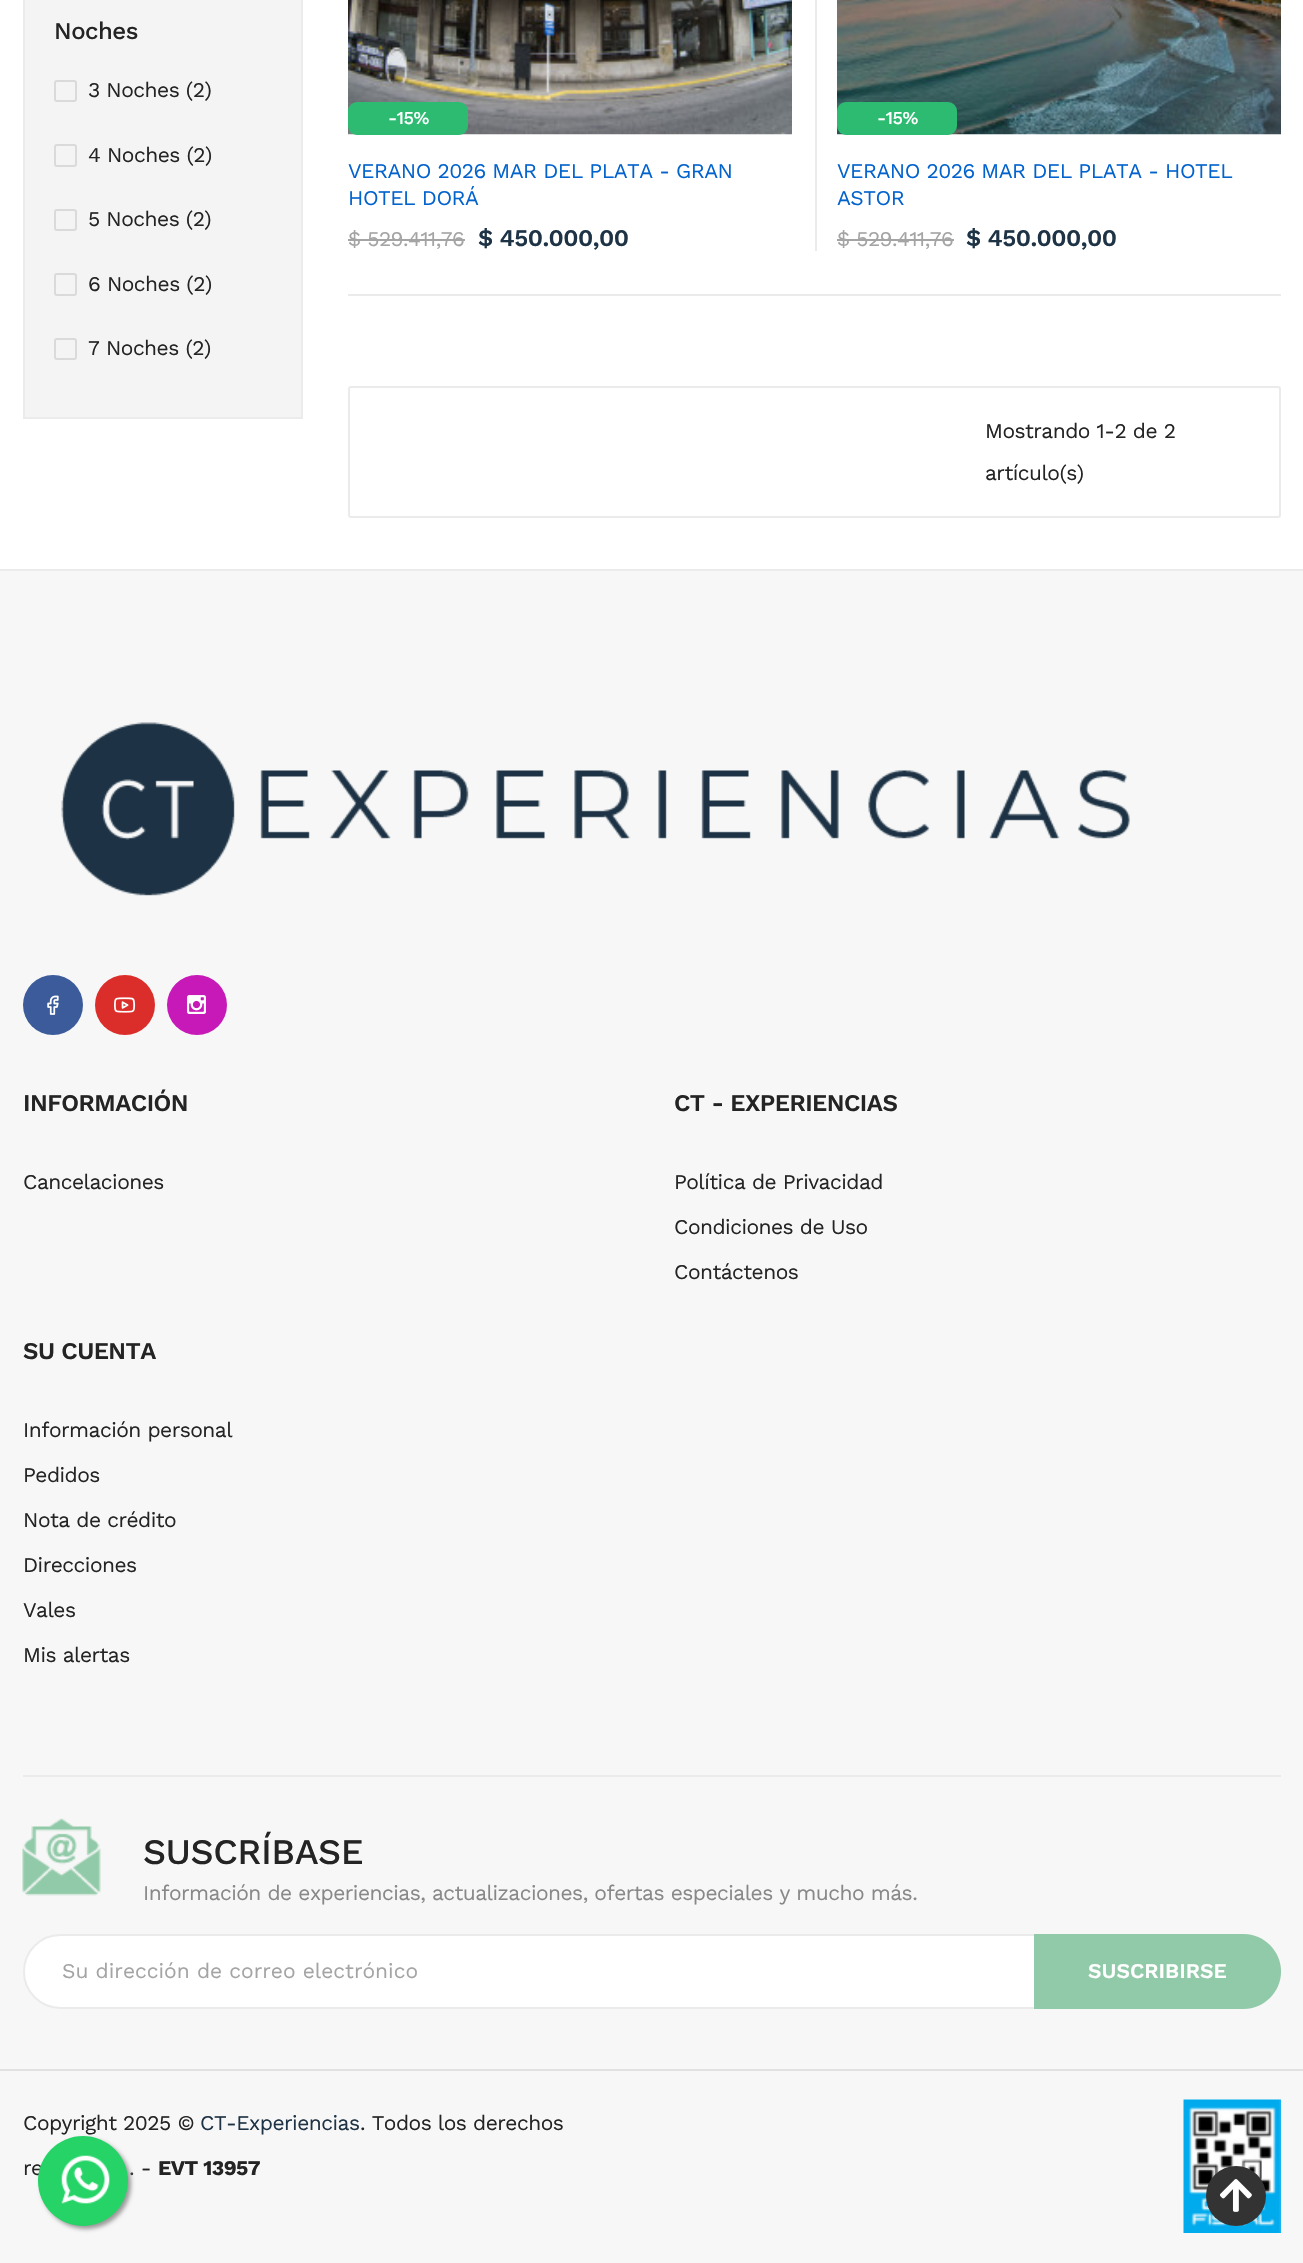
static SkFont makeFont(const char* family, int weight, float size, bool italic = false) {
  SkFontStyle style(weight, SkFontStyle::kNormal_Width,
    italic ? SkFontStyle::kItalic_Slant : SkFontStyle::kUpright_Slant);
  SkFont result(fontMgr->matchFamilyStyle(family, style), size);
  result.setSubpixel(true);
  return result;
}

static void text(SkCanvas* c, const char* s, float x, float y, const SkFont& font, SkColor color) {
  SkPaint ink(SkColor4f::FromColor(color));
  ink.setAntiAlias(true);
  c->drawString(s, x, y, font, ink);
}

static void spacedText(SkCanvas* c, const char* s, float x, float y, const SkFont& font, const SkPaint& ink, float letter, float word) {
  std::vector<SkGlyphID> glyphs(font.countText(s, strlen(s), SkTextEncoding::kUTF8));
  std::vector<float> xs(glyphs.size());
  font.textToGlyphs(s, strlen(s), SkTextEncoding::kUTF8, glyphs);
  font.getXPos(glyphs, xs, x);
  float extra = 0;
  for (size_t i = 0; i < glyphs.size(); i++) {
    xs[i] += extra;
    extra += letter + word * (glyphs[i] == font.unicharToGlyph(' '));
  }
  c->drawTextBlob(SkTextBlob::MakeFromPosHGlyphs(glyphs, xs, y, font), 0, 0, ink);
}

static void box(SkCanvas* c, float l, float t, float r, float b, SkColor color) {
  SkPaint ink(SkColor4f::FromColor(color));
  ink.setAntiAlias(true);
  c->drawRect(SkRect::MakeLTRB(l, t, r, b), ink);
}

static void roundBox(SkCanvas* c, float l, float t, float r, float b, float radius, SkColor color) {
  SkPaint ink(SkColor4f::FromColor(color));
  ink.setAntiAlias(true);
  c->drawRoundRect(SkRect::MakeLTRB(l, t, r, b), radius, radius, ink);
}

static void picture(SkCanvas* c, const char* path, float l, float t, float r, float b) {
  auto image = SkImages::DeferredFromEncodedData(SkData::MakeFromFileName(path));
  c->drawImageRect(image, SkRect::MakeLTRB(l, t, r, b), SkSamplingOptions());
}

void draw(SkCanvas* c) {
  SkPaint paint;
  paint.setAntiAlias(true);
  c->clear(0xffffffff);
  paint.setColor(0xfff4f4f4);
  c->drawRect(SkRect::MakeLTRB(24, -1, 302, 418), paint);
  paint.setStyle(SkPaint::kStroke_Style);
  paint.setStrokeWidth(2);
  paint.setColor(0xffebebeb);
  c->drawRect(SkRect::MakeLTRB(24, -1, 302, 418), paint);
  SkFont face1 = makeFont("Work Sans", 500, 24);
  paint.setStyle(SkPaint::kFill_Style);
  paint.setColor(0xff242424);
  spacedText(c, "Noches", 54, 39, face1, paint, -0.52f, 0);
  paint.setStyle(SkPaint::kStroke_Style);
  paint.setColor(0xffdadada);
  c->drawRoundRect(SkRect::MakeLTRB(55, 81, 76, 101), 2, 2, paint);
  SkFont face2 = makeFont("Work Sans", 400, 21);
  paint.setStyle(SkPaint::kFill_Style);
  paint.setColor(0xff242424);
  spacedText(c, "3 Noches (2)", 88, 97, face2, paint, -0.52f, 0);
  paint.setStyle(SkPaint::kStroke_Style);
  paint.setColor(0xffdadada);
  c->drawRoundRect(SkRect::MakeLTRB(55, 145, 76, 166), 2, 2, paint);
  paint.setStyle(SkPaint::kFill_Style);
  paint.setColor(0xff242424);
  spacedText(c, "4 Noches (2)", 88, 162, face2, paint, -0.52f, 0);
  paint.setStyle(SkPaint::kStroke_Style);
  paint.setColor(0xffdadada);
  c->drawRoundRect(SkRect::MakeLTRB(55, 210, 76, 230), 2, 2, paint);
  paint.setStyle(SkPaint::kFill_Style);
  paint.setColor(0xff242424);
  spacedText(c, "5 Noches (2)", 88, 226, face2, paint, -0.52f, 0);
  paint.setStyle(SkPaint::kStroke_Style);
  paint.setColor(0xffdadada);
  c->drawRoundRect(SkRect::MakeLTRB(55, 274, 76, 295), 2, 2, paint);
  paint.setStyle(SkPaint::kFill_Style);
  paint.setColor(0xff242424);
  spacedText(c, "6 Noches (2)", 88, 291, face2, paint, -0.52f, 0);
  paint.setStyle(SkPaint::kStroke_Style);
  paint.setColor(0xffdadada);
  c->drawRoundRect(SkRect::MakeLTRB(55, 339, 76, 359), 2, 2, paint);
  paint.setStyle(SkPaint::kFill_Style);
  paint.setColor(0xff242424);
  spacedText(c, "7 Noches (2)", 88, 355, face2, paint, -0.52f, 0);
  picture(c, "img_01.png", 348, 0, 792, 135);
  roundBox(c, 348, 102, 468, 135, 9, 0xff2dbb72);
  SkFont face3 = makeFont("Work Sans", 500, 18);
  paint.setColor(0xffffffff);
  spacedText(c, "-15%", 388, 124, face3, paint, -0.52f, 0);
  paint.setColor(0xff0363cd);
  spacedText(c, "VERANO 2026 MAR DEL PLATA - GRAN", 348, 178, face2, paint, -0.52f, 0);
  spacedText(c, "HOTEL DORÁ", 348, 205, face2, paint, -0.52f, 0);
  paint.setColor(0xffa4a4a4);
  spacedText(c, "$ 529.411,76", 348, 246, face2, paint, -0.52f, 0);
  box(c, 348, 239, 465, 241, 0xffa4a4a4);
  SkFont face4 = makeFont("Work Sans", 600, 24);
  paint.setColor(0xff1e3345);
  spacedText(c, "$ 450.000,00", 478, 246, face4, paint, -0.52f, 0);
  box(c, 348, 294, 1281, 296, 0xffebebeb);
  box(c, 815, 0, 817, 251, 0xffebebeb);
  picture(c, "img_02.png", 837, 0, 1281, 135);
  roundBox(c, 837, 102, 957, 135, 9, 0xff2dbb72);
  paint.setColor(0xffffffff);
  spacedText(c, "-15%", 877, 124, face3, paint, -0.52f, 0);
  paint.setColor(0xff0363cd);
  spacedText(c, "VERANO 2026 MAR DEL PLATA - HOTEL", 837, 178, face2, paint, -0.52f, 0);
  spacedText(c, "ASTOR", 837, 205, face2, paint, -0.52f, 0);
  paint.setColor(0xffa4a4a4);
  spacedText(c, "$ 529.411,76", 837, 246, face2, paint, -0.52f, 0);
  box(c, 837, 239, 954, 241, 0xffa4a4a4);
  paint.setColor(0xff1e3345);
  spacedText(c, "$ 450.000,00", 966, 246, face4, paint, -0.52f, 0);
  paint.setStyle(SkPaint::kStroke_Style);
  paint.setColor(0xffebebeb);
  c->drawRoundRect(SkRect::MakeLTRB(349, 387, 1280, 517), 2, 2, paint);
  paint.setStyle(SkPaint::kFill_Style);
  paint.setColor(0xff242424);
  spacedText(c, "Mostrando 1-2 de 2", 985, 438, face2, paint, -0.52f, 0);
  spacedText(c, "artículo(s)", 985, 480, face2, paint, -0.52f, 0);
  box(c, 0, 571, 1303, 2263, 0xfff7f7f7);
  box(c, 0, 569, 1303, 571, 0xffebebeb);
  picture(c, "img_03.png", 61, 722, 1130, 896);
  paint.setColor(0xff3c5b9b);
  c->drawCircle(53, 1005, 30, paint);
  picture(c, "img_04.png", 47, 995, 59, 1015);
  paint.setColor(0xffdb2d29);
  c->drawCircle(125, 1005, 30, paint);
  picture(c, "img_05.png", 114, 997, 136, 1013);
  paint.setColor(0xffc619b8);
  c->drawCircle(197, 1005, 30, paint);
  picture(c, "img_06.png", 187, 995, 206, 1014);
  paint.setColor(0xff242424);
  spacedText(c, "INFORMACIÓN", 23, 1111, face4, paint, -0.52f, 0);
  spacedText(c, "Cancelaciones", 23, 1189, face2, paint, -0.52f, 0);
  spacedText(c, "CT - EXPERIENCIAS", 674, 1111, face4, paint, -0.52f, 0);
  spacedText(c, "Política de Privacidad", 674, 1189, face2, paint, -0.52f, 0);
  spacedText(c, "Condiciones de Uso", 674, 1234, face2, paint, -0.52f, 0);
  spacedText(c, "Contáctenos", 674, 1279, face2, paint, -0.52f, 0);
  spacedText(c, "SU CUENTA", 23, 1359, face4, paint, -0.52f, 0);
  spacedText(c, "Información personal", 23, 1437, face2, paint, -0.52f, 0);
  spacedText(c, "Pedidos", 23, 1482, face2, paint, -0.52f, 0);
  spacedText(c, "Nota de crédito", 23, 1527, face2, paint, -0.52f, 0);
  spacedText(c, "Direcciones", 23, 1572, face2, paint, -0.52f, 0);
  spacedText(c, "Vales", 23, 1617, face2, paint, -0.52f, 0);
  spacedText(c, "Mis alertas", 23, 1662, face2, paint, -0.52f, 0);
  box(c, 23, 1775, 1281, 1777, 0xffebebeb);
  picture(c, "img_07.png", 22, 1818, 101, 1896);
  SkFont face5 = makeFont("Work Sans", 500, 36);
  spacedText(c, "SUSCRÍBASE", 143, 1864, face5, paint, -0.52f, 0);
  paint.setColor(0xff888888);
  spacedText(c, "Información de experiencias, actualizaciones, ofertas especiales y mucho más.", 143, 1900, face2, paint, -0.52f, 0);
  paint.setColor(0xffffffff);
  c->drawRoundRect(SkRect::MakeLTRB(24, 1935, 1280, 2008), 36.5f, 36.5f, paint);
  paint.setStyle(SkPaint::kStroke_Style);
  paint.setColor(0xffebebeb);
  c->drawRoundRect(SkRect::MakeLTRB(24, 1935, 1280, 2008), 36.5f, 36.5f, paint);
  text(c, "Su dirección de correo electrónico", 62, 1978, face2, 0xffa4a4a4);
  paint.setStyle(SkPaint::kFill_Style);
  paint.setColor(0xff91caa8);
  c->drawPath(SkPathBuilder().moveTo(1034, 1934).lineTo(1243.5f, 1934).cubicTo(1264, 1934, 1281, 1951, 1281, 1971.5f).cubicTo(1281, 1992, 1264, 2009, 1243.5f, 2009).lineTo(1034, 2009).close().detach(), paint);
  SkFont face6 = makeFont("Work Sans", 600, 21);
  text(c, "SUSCRIBIRSE", 1088, 1978, face6, 0xffffffff);
  box(c, 0, 2069, 1303, 2071, 0xffe1e1e1);
  paint.setColor(0xff242424);
  spacedText(c, "Copyright 2025 ©", 23, 2130, face2, paint, -0.52f, 0);
  paint.setColor(0xff1e3345);
  spacedText(c, "CT-Experiencias", 200, 2130, face2, paint, -0.52f, 0);
  paint.setColor(0xff242424);
  spacedText(c, ". Todos los derechos", 360, 2130, face2, paint, -0.52f, 0);
  spacedText(c, "re", 23, 2175, face2, paint, -0.52f, 0);
  spacedText(c, ". -", 129, 2175, face2, paint, -0.52f, 0);
  SkFont face7 = makeFont("Work Sans", 700, 21);
  spacedText(c, "EVT 13957", 158, 2175, face7, paint, -0.52f, 0);
  picture(c, "img_08.png", 1183, 2099, 1281, 2233);
  paint.setColor(0xff999999);
  paint.setMaskFilter(SkMaskFilter::MakeBlur(kNormal_SkBlurStyle, 2));
  c->drawRoundRect(SkRect::MakeLTRB(41, 2139, 131, 2229), 45, 45, paint);
  paint.setMaskFilter(nullptr);
  paint.setColor(0xff25d366);
  c->drawCircle(83, 2181, 45, paint);
  picture(c, "img_09.png", 61, 2155, 110, 2204);
  paint.setColor(0xff333333);
  c->drawCircle(1236, 2196, 30, paint);
  picture(c, "img_10.png", 1220, 2179, 1252, 2212);
}
